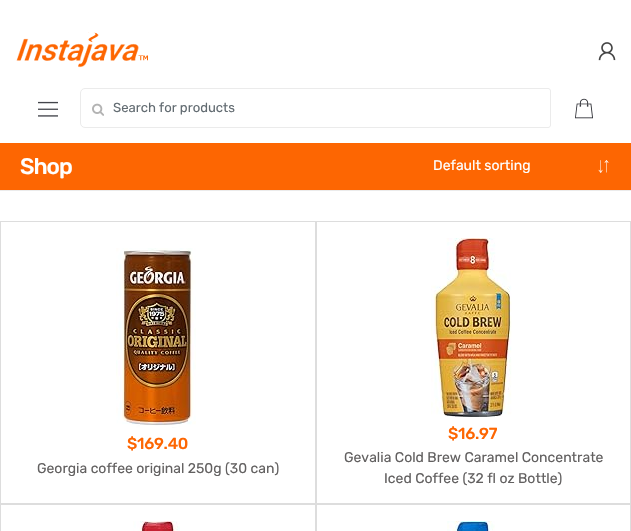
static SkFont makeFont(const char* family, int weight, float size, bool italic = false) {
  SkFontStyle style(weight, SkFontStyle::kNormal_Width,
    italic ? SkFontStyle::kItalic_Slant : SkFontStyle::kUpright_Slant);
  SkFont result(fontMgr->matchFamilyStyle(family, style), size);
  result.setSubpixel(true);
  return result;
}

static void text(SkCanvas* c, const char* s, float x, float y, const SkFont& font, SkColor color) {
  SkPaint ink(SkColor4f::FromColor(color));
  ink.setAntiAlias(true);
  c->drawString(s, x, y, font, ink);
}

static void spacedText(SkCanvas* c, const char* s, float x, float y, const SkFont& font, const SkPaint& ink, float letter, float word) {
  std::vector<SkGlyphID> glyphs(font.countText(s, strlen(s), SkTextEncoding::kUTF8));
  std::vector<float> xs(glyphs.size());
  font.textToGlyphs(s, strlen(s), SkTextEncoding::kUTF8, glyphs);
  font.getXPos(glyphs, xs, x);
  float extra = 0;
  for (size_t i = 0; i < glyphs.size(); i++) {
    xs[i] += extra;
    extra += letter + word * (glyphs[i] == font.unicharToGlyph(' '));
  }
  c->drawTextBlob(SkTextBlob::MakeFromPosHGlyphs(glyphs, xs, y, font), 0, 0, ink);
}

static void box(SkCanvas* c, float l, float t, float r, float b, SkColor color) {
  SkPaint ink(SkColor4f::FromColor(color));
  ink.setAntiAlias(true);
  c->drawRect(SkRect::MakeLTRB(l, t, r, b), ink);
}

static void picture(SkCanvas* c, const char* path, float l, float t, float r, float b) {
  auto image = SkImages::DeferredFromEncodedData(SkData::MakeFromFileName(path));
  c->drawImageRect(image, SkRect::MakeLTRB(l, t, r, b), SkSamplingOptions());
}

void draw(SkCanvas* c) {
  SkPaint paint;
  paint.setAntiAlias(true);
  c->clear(0xffffffff);
  picture(c, "img_01.png", 16, 32, 148, 68);
  picture(c, "img_02.png", 598, 42, 616, 61);
  picture(c, "img_03.png", 38, 101, 58, 117);
  paint.setStyle(SkPaint::kStroke_Style);
  paint.setStrokeWidth(1);
  paint.setColor(0xffebebeb);
  c->drawPath(SkPathBuilder().moveTo(85, 88.5f).lineTo(548, 88.5f).cubicTo(549.5f, 88.5f, 550.5f, 89.5f, 550.5f, 91).lineTo(550.5f, 125).cubicTo(550.5f, 126.5f, 549.5f, 127.5f, 548, 127.5f).lineTo(85, 127.5f).cubicTo(82.5f, 127.5f, 80.5f, 125.5f, 80.5f, 123).lineTo(80.5f, 93).cubicTo(80.5f, 90.5f, 82.5f, 88.5f, 85, 88.5f).close().detach(), paint);
  picture(c, "img_04.png", 92, 103, 104, 116);
  SkFont face1 = makeFont("Rubik", 400, 13.1f);
  text(c, "Search for products", 113, 112, face1, 0xff636c72);
  picture(c, "img_05.png", 575, 98, 593, 119);
  box(c, 0, 143, 631, 190, 0xfffd6602);
  box(c, 0, 190, 631, 191, 0xffebebeb);
  SkFont face2 = makeFont("Rubik", 500, 22.5f);
  paint.setStyle(SkPaint::kFill_Style);
  paint.setColor(0xffffffff);
  spacedText(c, "Shop", 20, 174, face2, paint, -1, 0);
  picture(c, "img_06.png", 598, 160, 609, 173);
  SkFont face3 = makeFont("Rubik", 400, 14);
  text(c, "Default sorting", 433, 170, face3, 0xffffffff);
  paint.setStyle(SkPaint::kStroke_Style);
  paint.setColor(0xffdddddd);
  c->drawRect(SkRect::MakeLTRB(0.5f, 221.5f, 315.5f, 503.5f), paint);
  picture(c, "img_07.png", 116, 248, 196, 428);
  SkFont face4 = makeFont("Rubik", 500, 16);
  paint.setStyle(SkPaint::kFill_Style);
  paint.setColor(0xfffd6602);
  spacedText(c, "$169.40", 127, 449, face4, paint, -0.25f, 0);
  text(c, "Georgia coffee original 250g (30 can)", 37, 473, face3, 0xff626060);
  paint.setStyle(SkPaint::kStroke_Style);
  paint.setColor(0xffdddddd);
  c->drawRect(SkRect::MakeLTRB(316.5f, 221.5f, 630.5f, 503.5f), paint);
  picture(c, "img_08.png", 431, 238, 512, 417);
  paint.setStyle(SkPaint::kFill_Style);
  paint.setColor(0xfffd6602);
  spacedText(c, "$16.97", 448, 439, face4, paint, -0.25f, 0);
  text(c, "Gevalia Cold Brew Caramel Concentrate", 344, 462, face3, 0xff626060);
  text(c, "Iced Coffee (32 fl oz Bottle)", 384, 483, face3, 0xff626060);
  paint.setStyle(SkPaint::kStroke_Style);
  paint.setColor(0xffdddddd);
  c->drawRect(SkRect::MakeLTRB(0.5f, 504.5f, 315.5f, 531.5f), paint);
  picture(c, "img_09.png", 133, 521, 180, 531);
  c->drawRect(SkRect::MakeLTRB(316.5f, 504.5f, 630.5f, 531.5f), paint);
  picture(c, "img_10.png", 447, 521, 495, 531);
}
